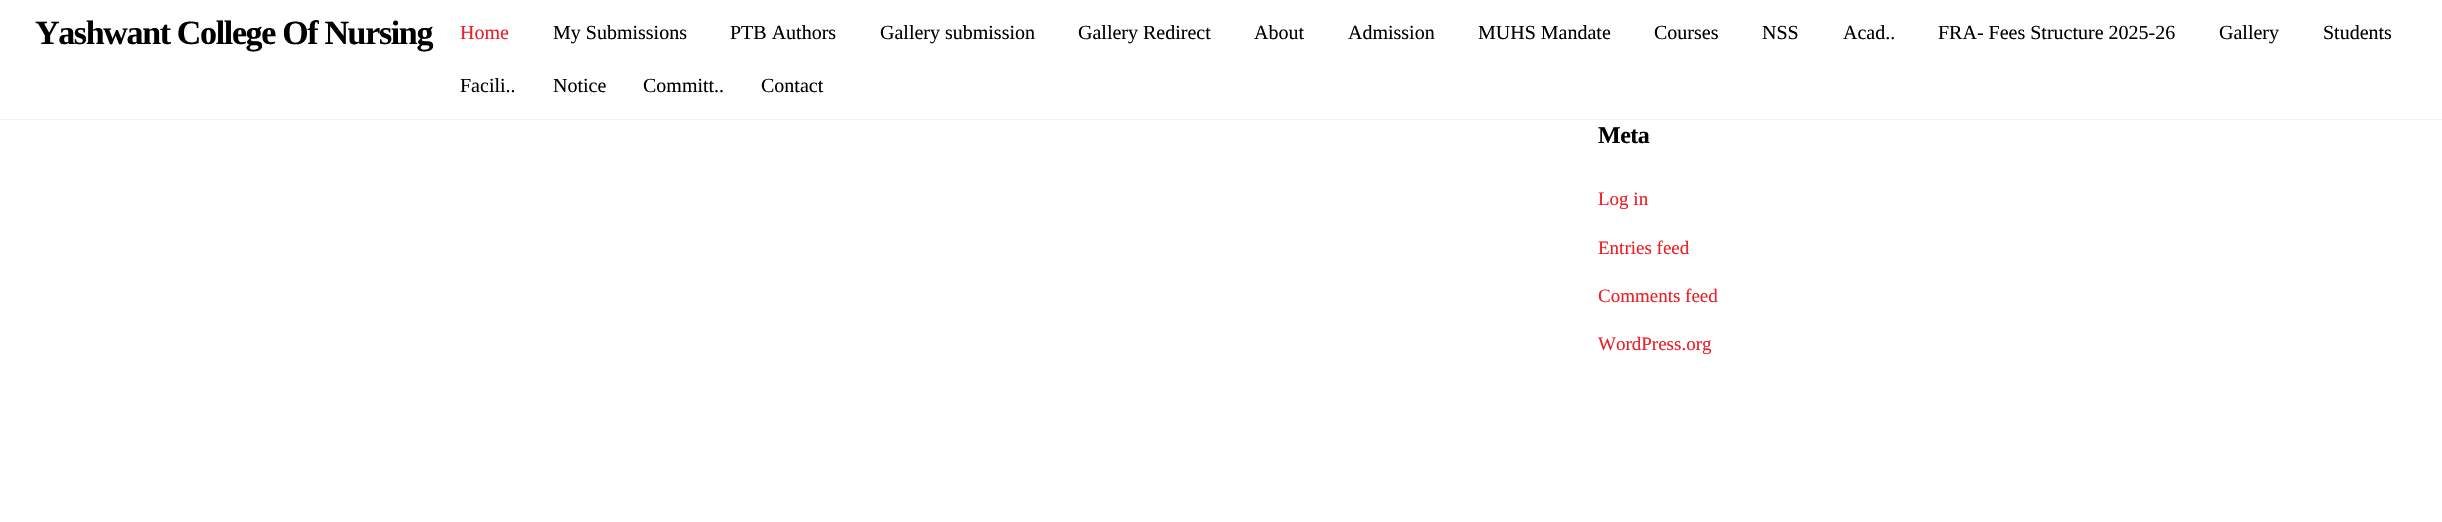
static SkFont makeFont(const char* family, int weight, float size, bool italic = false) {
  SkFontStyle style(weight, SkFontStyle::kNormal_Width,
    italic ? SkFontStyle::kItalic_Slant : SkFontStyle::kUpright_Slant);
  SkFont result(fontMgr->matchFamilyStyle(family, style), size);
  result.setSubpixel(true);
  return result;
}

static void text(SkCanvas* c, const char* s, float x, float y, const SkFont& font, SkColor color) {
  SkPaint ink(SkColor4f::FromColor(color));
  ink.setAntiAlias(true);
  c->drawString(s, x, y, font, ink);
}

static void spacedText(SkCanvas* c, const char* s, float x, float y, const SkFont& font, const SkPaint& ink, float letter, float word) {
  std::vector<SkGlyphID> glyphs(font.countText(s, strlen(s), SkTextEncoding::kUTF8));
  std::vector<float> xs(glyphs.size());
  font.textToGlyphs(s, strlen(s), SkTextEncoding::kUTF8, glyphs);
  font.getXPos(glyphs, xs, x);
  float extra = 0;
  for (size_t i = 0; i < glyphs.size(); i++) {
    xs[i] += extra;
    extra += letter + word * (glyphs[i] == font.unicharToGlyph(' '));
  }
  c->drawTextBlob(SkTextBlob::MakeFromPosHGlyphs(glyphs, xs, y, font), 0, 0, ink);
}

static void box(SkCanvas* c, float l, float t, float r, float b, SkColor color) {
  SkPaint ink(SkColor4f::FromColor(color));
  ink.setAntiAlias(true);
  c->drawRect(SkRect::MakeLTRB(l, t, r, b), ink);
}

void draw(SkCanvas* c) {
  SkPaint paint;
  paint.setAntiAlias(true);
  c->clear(0xffffffff);
  box(c, 0, 119, 2442, 120, 0xfff2f2f2);
  SkFont face1 = makeFont("Liberation Serif", 700, 34);
  paint.setColor(0xff000000);
  spacedText(c, "Yashwant College Of Nursing", 35, 44, face1, paint, -1.35f, 0);
  SkFont face2 = makeFont("Liberation Serif", 400, 20);
  text(c, "Home", 460, 39, face2, 0xffed1e24);
  text(c, "My Submissions", 553, 39, face2, 0xff000000);
  text(c, "PTB Authors", 730, 39, face2, 0xff000000);
  text(c, "Gallery submission", 880, 39, face2, 0xff000000);
  text(c, "Gallery Redirect", 1078, 39, face2, 0xff000000);
  text(c, "About", 1254, 39, face2, 0xff000000);
  text(c, "Admission", 1348, 39, face2, 0xff000000);
  text(c, "MUHS Mandate", 1478, 39, face2, 0xff000000);
  text(c, "Courses", 1654, 39, face2, 0xff000000);
  text(c, "NSS", 1762, 39, face2, 0xff000000);
  text(c, "Acad..", 1843, 39, face2, 0xff000000);
  text(c, "FRA- Fees Structure 2025-26", 1938, 39, face2, 0xff000000);
  text(c, "Gallery", 2219, 39, face2, 0xff000000);
  text(c, "Students", 2323, 39, face2, 0xff000000);
  text(c, "Facili..", 460, 92, face2, 0xff000000);
  text(c, "Notice", 553, 92, face2, 0xff000000);
  text(c, "Committ..", 643, 92, face2, 0xff000000);
  text(c, "Contact", 761, 92, face2, 0xff000000);
  SkFont face3 = makeFont("Liberation Serif", 700, 24);
  spacedText(c, "Meta", 1598, 143, face3, paint, -0.5f, 0);
  SkFont face4 = makeFont("Liberation Serif", 400, 19);
  text(c, "Log in", 1598, 205, face4, 0xffed1e24);
  text(c, "Entries feed", 1598, 254, face4, 0xffed1e24);
  text(c, "Comments feed", 1598, 302, face4, 0xffed1e24);
  text(c, "WordPress.org", 1598, 350, face4, 0xffed1e24);
}
